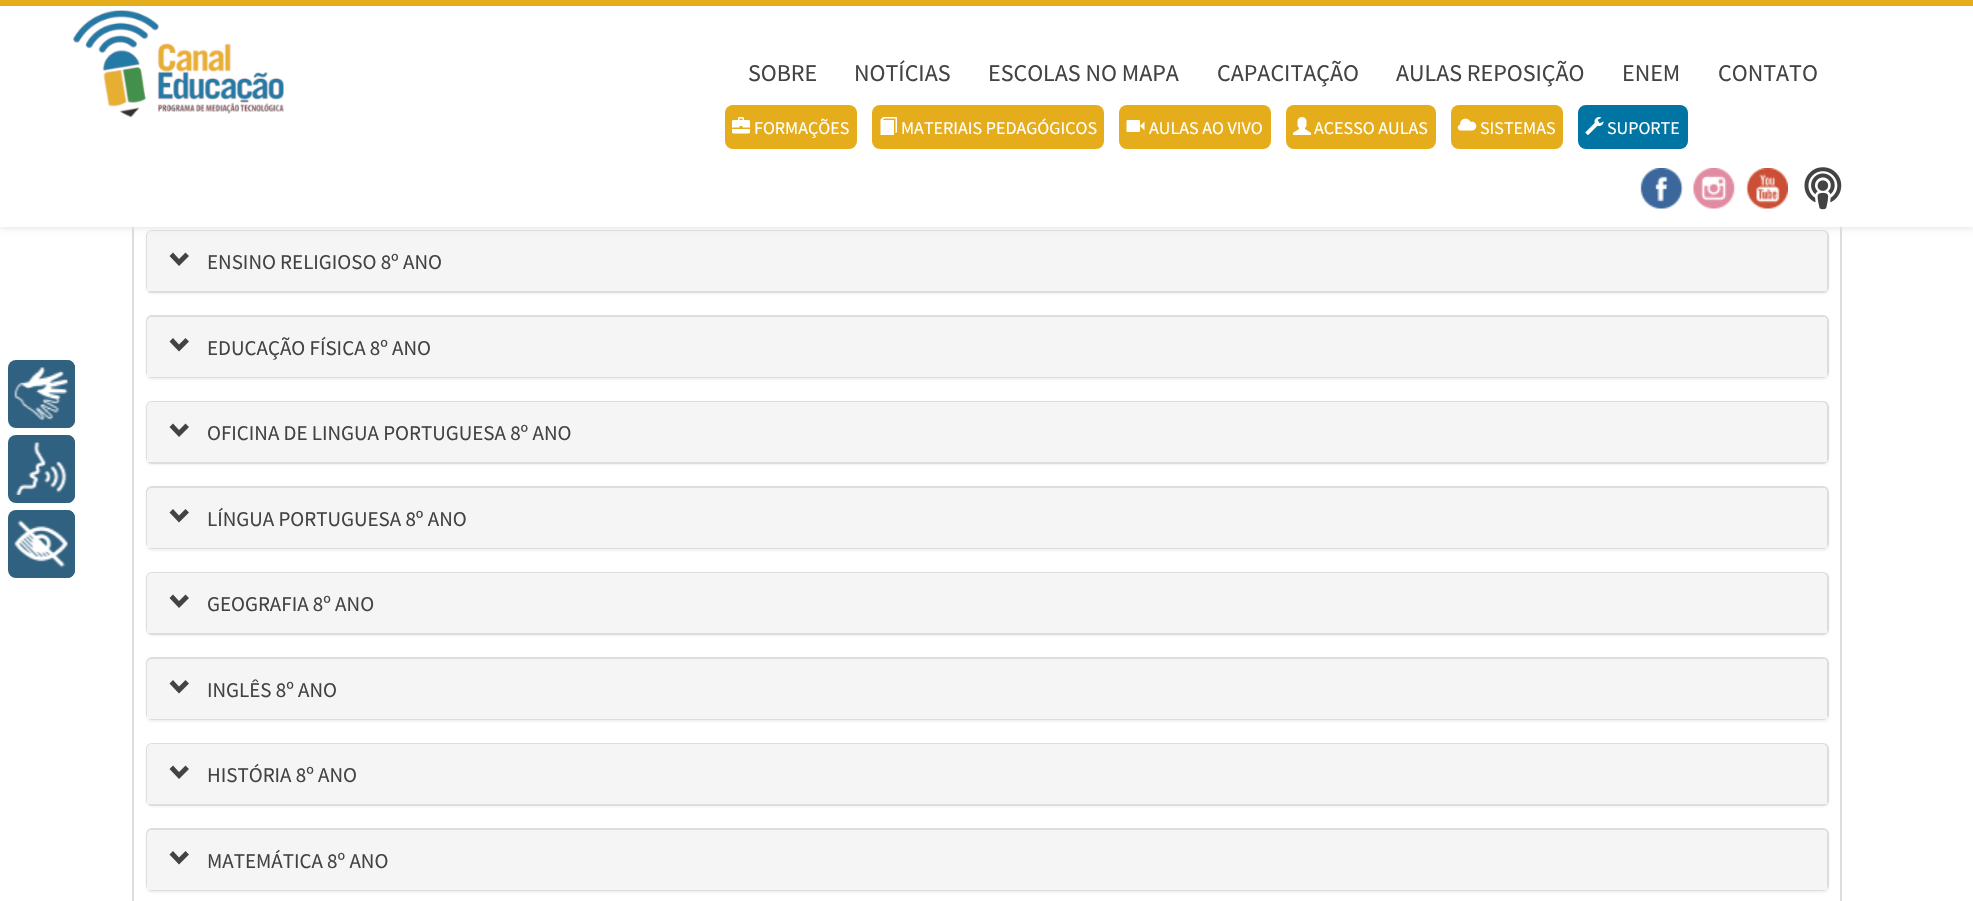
static SkFont makeFont(const char* family, int weight, float size, bool italic = false) {
  SkFontStyle style(weight, SkFontStyle::kNormal_Width,
    italic ? SkFontStyle::kItalic_Slant : SkFontStyle::kUpright_Slant);
  SkFont result(fontMgr->matchFamilyStyle(family, style), size);
  result.setSubpixel(true);
  return result;
}

static void text(SkCanvas* c, const char* s, float x, float y, const SkFont& font, SkColor color) {
  SkPaint ink(SkColor4f::FromColor(color));
  ink.setAntiAlias(true);
  c->drawString(s, x, y, font, ink);
}

static void box(SkCanvas* c, float l, float t, float r, float b, SkColor color) {
  SkPaint ink(SkColor4f::FromColor(color));
  ink.setAntiAlias(true);
  c->drawRect(SkRect::MakeLTRB(l, t, r, b), ink);
}

static void roundBox(SkCanvas* c, float l, float t, float r, float b, float radius, SkColor color) {
  SkPaint ink(SkColor4f::FromColor(color));
  ink.setAntiAlias(true);
  c->drawRoundRect(SkRect::MakeLTRB(l, t, r, b), radius, radius, ink);
}

static void picture(SkCanvas* c, const char* path, float l, float t, float r, float b) {
  auto image = SkImages::DeferredFromEncodedData(SkData::MakeFromFileName(path));
  c->drawImageRect(image, SkRect::MakeLTRB(l, t, r, b), SkSamplingOptions());
}

void draw(SkCanvas* c) {
  SkPaint paint;
  paint.setAntiAlias(true);
  c->clear(0xffffffff);
  paint.setStyle(SkPaint::kStroke_Style);
  paint.setStrokeWidth(2);
  paint.setColor(0xffdddddd);
  c->drawRect(SkRect::MakeLTRB(133, 63, 1841, 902), paint);
  paint.setStyle(SkPaint::kFill_Style);
  paint.setColor(0x0d000000);
  paint.setMaskFilter(SkMaskFilter::MakeBlur(kNormal_SkBlurStyle, 1));
  c->drawRoundRect(SkRect::MakeLTRB(146, 231, 1829, 294), 6, 6, paint);
  paint.setMaskFilter(nullptr);
  paint.setStyle(SkPaint::kStroke_Style);
  paint.setColor(0xffdddddd);
  c->drawRoundRect(SkRect::MakeLTRB(147, 231, 1828, 292), 5, 5, paint);
  paint.setStyle(SkPaint::kFill_Style);
  paint.setColor(0xfff5f5f5);
  c->drawPath(SkPathBuilder().moveTo(152, 231).lineTo(1822, 231).cubicTo(1825, 231, 1827, 233, 1827, 236).lineTo(1827, 291).lineTo(147, 291).lineTo(147, 236).cubicTo(147, 233, 149, 231, 152, 231).close().detach(), paint);
  paint.setColor(0xffdddddd);
  paint.setMaskFilter(SkMaskFilter::MakeBlur(kNormal_SkBlurStyle, 4));
  c->drawRect(SkRect::MakeLTRB(0, 0, 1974, 227), paint);
  paint.setMaskFilter(nullptr);
  box(c, 0, 6, 1973, 227, 0xffffffff);
  box(c, 0, 0, 1973, 6, 0xffe5ad1b);
  picture(c, "img_01.png", 73, 10, 284, 118);
  SkFont face1 = makeFont("Source Sans Pro", 400, 24);
  text(c, "SOBRE", 748, 81, face1, 0xff434343);
  text(c, "NOTÍCIAS", 854, 81, face1, 0xff434343);
  text(c, "ESCOLAS NO MAPA", 988, 81, face1, 0xff434343);
  text(c, "CAPACITAÇÃO", 1217, 81, face1, 0xff434343);
  text(c, "AULAS REPOSIÇÃO", 1396, 81, face1, 0xff434343);
  text(c, "ENEM", 1622, 81, face1, 0xff434343);
  text(c, "CONTATO", 1718, 81, face1, 0xff434343);
  roundBox(c, 725, 105, 857, 149, 8, 0xffe5ad1b);
  picture(c, "img_02.png", 732, 117, 750, 134);
  SkFont face2 = makeFont("Source Sans Pro", 400, 18);
  text(c, "FORMAÇÕES", 754, 134, face2, 0xffffffff);
  roundBox(c, 872, 105, 1104, 149, 8, 0xffe5ad1b);
  picture(c, "img_03.png", 880, 117, 897, 135);
  text(c, "MATERIAIS PEDAGÓGICOS", 901, 134, face2, 0xffffffff);
  roundBox(c, 1119, 105, 1271, 149, 8, 0xffe5ad1b);
  picture(c, "img_04.png", 1126, 120, 1145, 132);
  text(c, "AULAS AO VIVO", 1149, 134, face2, 0xffffffff);
  roundBox(c, 1286, 105, 1436, 149, 8, 0xffe5ad1b);
  picture(c, "img_05.png", 1293, 117, 1311, 135);
  text(c, "ACESSO AULAS", 1314, 134, face2, 0xffffffff);
  roundBox(c, 1451, 105, 1563, 149, 8, 0xffe5ad1b);
  picture(c, "img_06.png", 1457, 118, 1477, 131);
  text(c, "SISTEMAS", 1480, 134, face2, 0xffffffff);
  roundBox(c, 1578, 105, 1688, 149, 8, 0xff0074a2);
  picture(c, "img_07.png", 1585, 117, 1604, 135);
  text(c, "SUPORTE", 1607, 134, face2, 0xffffffff);
  picture(c, "img_08.png", 1640, 168, 1683, 209);
  picture(c, "img_09.png", 1692, 168, 1736, 209);
  picture(c, "img_10.png", 1746, 168, 1788, 209);
  picture(c, "img_11.png", 1804, 167, 1842, 210);
  roundBox(c, 8, 360, 75, 428, 8, 0xff316181);
  picture(c, "img_12.png", 14, 367, 68, 420);
  c->save();
  c->clipPath(SkPathBuilder().moveTo(16, 360).lineTo(67, 360).cubicTo(71.5f, 360, 75, 363.5f, 75, 368).lineTo(75, 420).cubicTo(75, 424.5f, 71.5f, 428, 67, 428).lineTo(16, 428).cubicTo(11.5f, 428, 8, 424.5f, 8, 420).lineTo(8, 368).cubicTo(8, 363.5f, 11.5f, 360, 16, 360).close().detach(), true);
  box(c, 68, 360, 75, 428, 0xff316181);
  c->restore();
  roundBox(c, 8, 435, 75, 503, 8, 0xff316181);
  picture(c, "img_13.png", 15, 442, 67, 495);
  c->save();
  c->clipPath(SkPathBuilder().moveTo(16, 435).lineTo(67, 435).cubicTo(71.5f, 435, 75, 438.5f, 75, 443).lineTo(75, 495).cubicTo(75, 499.5f, 71.5f, 503, 67, 503).lineTo(16, 503).cubicTo(11.5f, 503, 8, 499.5f, 8, 495).lineTo(8, 443).cubicTo(8, 438.5f, 11.5f, 435, 16, 435).close().detach(), true);
  box(c, 68, 435, 75, 503, 0xff316181);
  c->restore();
  roundBox(c, 8, 510, 75, 578, 8, 0xff316181);
  picture(c, "img_14.png", 14, 520, 68, 568);
  c->save();
  c->clipPath(SkPathBuilder().moveTo(16, 510).lineTo(67, 510).cubicTo(71.5f, 510, 75, 513.5f, 75, 518).lineTo(75, 570).cubicTo(75, 574.5f, 71.5f, 578, 67, 578).lineTo(16, 578).cubicTo(11.5f, 578, 8, 574.5f, 8, 570).lineTo(8, 518).cubicTo(8, 513.5f, 11.5f, 510, 16, 510).close().detach(), true);
  box(c, 68, 510, 75, 578, 0xff316181);
  c->restore();
  paint.setColor(0xff434343);
  c->drawPath(SkPathBuilder().moveTo(189, 256).lineTo(179, 266).lineTo(169.5f, 256).lineTo(173, 252.5f).lineTo(179, 259).lineTo(185.5f, 252.5f).close().detach(), paint);
  SkFont face3 = makeFont("Source Sans Pro", 400, 21);
  text(c, "ENSINO RELIGIOSO 8º ANO", 207, 269, face3, 0xff434343);
  paint.setColor(0x0d000000);
  paint.setMaskFilter(SkMaskFilter::MakeBlur(kNormal_SkBlurStyle, 1));
  c->drawRoundRect(SkRect::MakeLTRB(146, 317, 1829, 380), 6, 6, paint);
  paint.setMaskFilter(nullptr);
  paint.setColor(0xffffffff);
  c->drawRoundRect(SkRect::MakeLTRB(147, 316, 1828, 377), 5, 5, paint);
  paint.setStyle(SkPaint::kStroke_Style);
  paint.setColor(0xffdddddd);
  c->drawRoundRect(SkRect::MakeLTRB(147, 316, 1828, 377), 5, 5, paint);
  paint.setStyle(SkPaint::kFill_Style);
  paint.setColor(0xfff5f5f5);
  c->drawPath(SkPathBuilder().moveTo(152, 317).lineTo(1822, 317).cubicTo(1825, 317, 1827, 319, 1827, 322).lineTo(1827, 377).lineTo(147, 377).lineTo(147, 322).cubicTo(147, 319, 149, 317, 152, 317).close().detach(), paint);
  paint.setColor(0xff434343);
  c->drawPath(SkPathBuilder().moveTo(189, 341.5f).lineTo(179, 351.5f).lineTo(169.5f, 341.5f).lineTo(173, 338).lineTo(179, 344.5f).lineTo(185.5f, 338).close().detach(), paint);
  text(c, "EDUCAÇÃO FÍSICA 8º ANO", 207, 355, face3, 0xff434343);
  paint.setColor(0x0d000000);
  paint.setMaskFilter(SkMaskFilter::MakeBlur(kNormal_SkBlurStyle, 1));
  c->drawRoundRect(SkRect::MakeLTRB(146, 402, 1829, 465), 6, 6, paint);
  paint.setMaskFilter(nullptr);
  paint.setStyle(SkPaint::kStroke_Style);
  paint.setColor(0xffdddddd);
  c->drawRoundRect(SkRect::MakeLTRB(147, 402, 1828, 463), 5, 5, paint);
  paint.setStyle(SkPaint::kFill_Style);
  paint.setColor(0xfff5f5f5);
  c->drawPath(SkPathBuilder().moveTo(152, 402).lineTo(1822, 402).cubicTo(1825, 402, 1827, 404, 1827, 407).lineTo(1827, 462).lineTo(147, 462).lineTo(147, 407).cubicTo(147, 404, 149, 402, 152, 402).close().detach(), paint);
  paint.setColor(0xff434343);
  c->drawPath(SkPathBuilder().moveTo(189, 427).lineTo(179, 437).lineTo(169.5f, 427).lineTo(173, 423.5f).lineTo(179, 430).lineTo(185.5f, 423.5f).close().detach(), paint);
  text(c, "OFICINA DE LINGUA PORTUGUESA 8º ANO", 207, 440, face3, 0xff434343);
  paint.setColor(0x0d000000);
  paint.setMaskFilter(SkMaskFilter::MakeBlur(kNormal_SkBlurStyle, 1));
  c->drawRoundRect(SkRect::MakeLTRB(146, 488, 1829, 551), 6, 6, paint);
  paint.setMaskFilter(nullptr);
  paint.setColor(0xffffffff);
  c->drawRoundRect(SkRect::MakeLTRB(147, 487, 1828, 548), 5, 5, paint);
  paint.setStyle(SkPaint::kStroke_Style);
  paint.setColor(0xffdddddd);
  c->drawRoundRect(SkRect::MakeLTRB(147, 487, 1828, 548), 5, 5, paint);
  paint.setStyle(SkPaint::kFill_Style);
  paint.setColor(0xfff5f5f5);
  c->drawPath(SkPathBuilder().moveTo(152, 488).lineTo(1822, 488).cubicTo(1825, 488, 1827, 490, 1827, 493).lineTo(1827, 548).lineTo(147, 548).lineTo(147, 493).cubicTo(147, 490, 149, 488, 152, 488).close().detach(), paint);
  paint.setColor(0xff434343);
  c->drawPath(SkPathBuilder().moveTo(189, 512.5f).lineTo(179, 522.5f).lineTo(169.5f, 512.5f).lineTo(173, 509).lineTo(179, 515.5f).lineTo(185.5f, 509).close().detach(), paint);
  text(c, "LÍNGUA PORTUGUESA 8º ANO", 207, 526, face3, 0xff434343);
  paint.setColor(0x0d000000);
  paint.setMaskFilter(SkMaskFilter::MakeBlur(kNormal_SkBlurStyle, 1));
  c->drawRoundRect(SkRect::MakeLTRB(146, 573, 1829, 636), 6, 6, paint);
  paint.setMaskFilter(nullptr);
  paint.setStyle(SkPaint::kStroke_Style);
  paint.setColor(0xffdddddd);
  c->drawRoundRect(SkRect::MakeLTRB(147, 573, 1828, 634), 5, 5, paint);
  paint.setStyle(SkPaint::kFill_Style);
  paint.setColor(0xfff5f5f5);
  c->drawPath(SkPathBuilder().moveTo(152, 573).lineTo(1822, 573).cubicTo(1825, 573, 1827, 575, 1827, 578).lineTo(1827, 633).lineTo(147, 633).lineTo(147, 578).cubicTo(147, 575, 149, 573, 152, 573).close().detach(), paint);
  paint.setColor(0xff434343);
  c->drawPath(SkPathBuilder().moveTo(189, 598).lineTo(179, 608).lineTo(169.5f, 598).lineTo(173, 594.5f).lineTo(179, 601).lineTo(185.5f, 594.5f).close().detach(), paint);
  text(c, "GEOGRAFIA 8º ANO", 207, 611, face3, 0xff434343);
  paint.setColor(0x0d000000);
  paint.setMaskFilter(SkMaskFilter::MakeBlur(kNormal_SkBlurStyle, 1));
  c->drawRoundRect(SkRect::MakeLTRB(146, 659, 1829, 722), 6, 6, paint);
  paint.setMaskFilter(nullptr);
  paint.setColor(0xffffffff);
  c->drawRoundRect(SkRect::MakeLTRB(147, 658, 1828, 719), 5, 5, paint);
  paint.setStyle(SkPaint::kStroke_Style);
  paint.setColor(0xffdddddd);
  c->drawRoundRect(SkRect::MakeLTRB(147, 658, 1828, 719), 5, 5, paint);
  paint.setStyle(SkPaint::kFill_Style);
  paint.setColor(0xfff5f5f5);
  c->drawPath(SkPathBuilder().moveTo(152, 659).lineTo(1822, 659).cubicTo(1825, 659, 1827, 661, 1827, 664).lineTo(1827, 719).lineTo(147, 719).lineTo(147, 664).cubicTo(147, 661, 149, 659, 152, 659).close().detach(), paint);
  paint.setColor(0xff434343);
  c->drawPath(SkPathBuilder().moveTo(189, 683.5f).lineTo(179, 693.5f).lineTo(169.5f, 683.5f).lineTo(173, 680).lineTo(179, 686.5f).lineTo(185.5f, 680).close().detach(), paint);
  text(c, "INGLÊS 8º ANO", 207, 697, face3, 0xff434343);
  paint.setColor(0x0d000000);
  paint.setMaskFilter(SkMaskFilter::MakeBlur(kNormal_SkBlurStyle, 1));
  c->drawRoundRect(SkRect::MakeLTRB(146, 744, 1829, 807), 6, 6, paint);
  paint.setMaskFilter(nullptr);
  paint.setStyle(SkPaint::kStroke_Style);
  paint.setColor(0xffdddddd);
  c->drawRoundRect(SkRect::MakeLTRB(147, 744, 1828, 805), 5, 5, paint);
  paint.setStyle(SkPaint::kFill_Style);
  paint.setColor(0xfff5f5f5);
  c->drawPath(SkPathBuilder().moveTo(152, 744).lineTo(1822, 744).cubicTo(1825, 744, 1827, 746, 1827, 749).lineTo(1827, 804).lineTo(147, 804).lineTo(147, 749).cubicTo(147, 746, 149, 744, 152, 744).close().detach(), paint);
  paint.setColor(0xff434343);
  c->drawPath(SkPathBuilder().moveTo(189, 769).lineTo(179, 779).lineTo(169.5f, 769).lineTo(173, 765.5f).lineTo(179, 772).lineTo(185.5f, 765.5f).close().detach(), paint);
  text(c, "HISTÓRIA 8º ANO", 207, 782, face3, 0xff434343);
  paint.setColor(0x0d000000);
  paint.setMaskFilter(SkMaskFilter::MakeBlur(kNormal_SkBlurStyle, 1));
  c->drawRoundRect(SkRect::MakeLTRB(146, 830, 1829, 893), 6, 6, paint);
  paint.setMaskFilter(nullptr);
  paint.setColor(0xffffffff);
  c->drawRoundRect(SkRect::MakeLTRB(147, 829, 1828, 890), 5, 5, paint);
  paint.setStyle(SkPaint::kStroke_Style);
  paint.setColor(0xffdddddd);
  c->drawRoundRect(SkRect::MakeLTRB(147, 829, 1828, 890), 5, 5, paint);
  paint.setStyle(SkPaint::kFill_Style);
  paint.setColor(0xfff5f5f5);
  c->drawPath(SkPathBuilder().moveTo(152, 830).lineTo(1822, 830).cubicTo(1825, 830, 1827, 832, 1827, 835).lineTo(1827, 890).lineTo(147, 890).lineTo(147, 835).cubicTo(147, 832, 149, 830, 152, 830).close().detach(), paint);
  paint.setColor(0xff434343);
  c->drawPath(SkPathBuilder().moveTo(189, 854.5f).lineTo(179, 864.5f).lineTo(169.5f, 854.5f).lineTo(173, 851).lineTo(179, 857.5f).lineTo(185.5f, 851).close().detach(), paint);
  text(c, "MATEMÁTICA 8º ANO", 207, 868, face3, 0xff434343);
}
